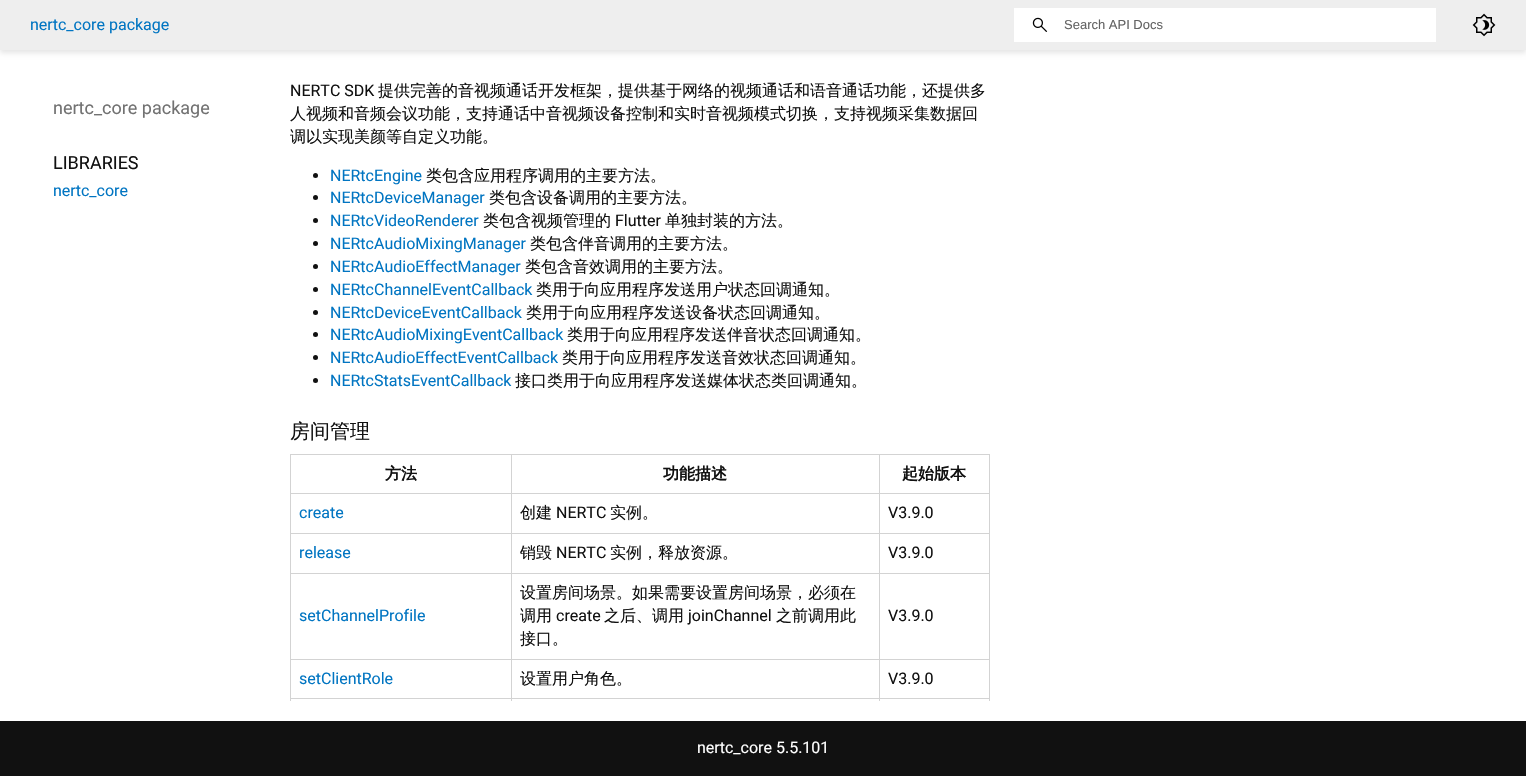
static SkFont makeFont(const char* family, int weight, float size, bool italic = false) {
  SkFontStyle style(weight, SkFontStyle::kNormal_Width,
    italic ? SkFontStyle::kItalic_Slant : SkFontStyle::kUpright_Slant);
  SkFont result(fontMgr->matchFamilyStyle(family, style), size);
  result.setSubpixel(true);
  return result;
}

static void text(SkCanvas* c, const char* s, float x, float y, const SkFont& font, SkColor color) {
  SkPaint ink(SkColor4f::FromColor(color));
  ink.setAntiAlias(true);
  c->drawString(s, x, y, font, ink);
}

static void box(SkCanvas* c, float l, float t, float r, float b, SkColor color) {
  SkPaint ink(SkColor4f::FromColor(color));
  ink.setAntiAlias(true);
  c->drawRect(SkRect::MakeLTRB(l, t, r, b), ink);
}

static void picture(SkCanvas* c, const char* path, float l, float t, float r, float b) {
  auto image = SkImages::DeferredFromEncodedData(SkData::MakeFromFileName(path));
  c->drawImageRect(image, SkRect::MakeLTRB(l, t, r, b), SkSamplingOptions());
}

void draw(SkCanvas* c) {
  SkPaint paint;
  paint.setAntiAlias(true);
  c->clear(0xffffffff);
  paint.setColor(0x1a000000);
  paint.setMaskFilter(SkMaskFilter::MakeBlur(kNormal_SkBlurStyle, 2.5f));
  c->drawRect(SkRect::MakeLTRB(0, 3, 1526, 53), paint);
  paint.setMaskFilter(nullptr);
  box(c, 0, 0, 1526, 50, 0xffeeeeee);
  SkFont face1 = makeFont("Roboto", 400, 16);
  text(c, "nertc_core package", 30, 30, face1, 0xff0175c2);
  box(c, 1014, 8, 1436, 42, 0xffffffff);
  picture(c, "img_01.png", 1032, 17, 1048, 32);
  SkFont face2 = makeFont("Liberation Sans", 400, 13);
  text(c, "Search API Docs", 1064, 29, face2, 0xff636363);
  picture(c, "img_02.png", 1472, 13, 1496, 37);
  SkFont face3 = makeFont("Roboto", 400, 18);
  text(c, "nertc_core package", 53, 114, face3, 0xff727272);
  text(c, "LIBRARIES", 53, 169, face3, 0xff111111);
  text(c, "nertc_core", 53, 196, face1, 0xff0175c2);
  text(c, "NERTC SDK", 290, 96, face1, 0xff111111);
  SkFont face4 = makeFont("WenQuanYi Zen Hei", 500, 16);
  text(c, "提供完善的音视频通话开发框架，提供基于网络的视频通话和语音通话功能，还提供多", 378, 96, face4, 0xff111111);
  text(c, "人视频和音频会议功能，支持通话中音视频设备控制和实时音视频模式切换，支持视频采集数据回", 290, 119, face4, 0xff111111);
  text(c, "调以实现美颜等自定义功能。", 290, 142, face4, 0xff111111);
  paint.setColor(0xff111111);
  c->drawCircle(315.5f, 175.5f, 2.5f, paint);
  text(c, "NERtcEngine", 330, 181, face1, 0xff0175c2);
  text(c, "类包含应用程序调用的主要方法。", 426, 181, face4, 0xff111111);
  c->drawCircle(315.5f, 197.5f, 2.5f, paint);
  text(c, "NERtcDeviceManager", 330, 203, face1, 0xff0175c2);
  text(c, "类包含设备调用的主要方法。", 489, 203, face4, 0xff111111);
  c->drawCircle(315.5f, 220.5f, 2.5f, paint);
  text(c, "NERtcVideoRenderer", 330, 226, face1, 0xff0175c2);
  text(c, "类包含视频管理的", 483, 226, face4, 0xff111111);
  text(c, "Flutter", 615, 226, face1, 0xff111111);
  text(c, "单独封装的方法。", 665, 226, face4, 0xff111111);
  c->drawCircle(315.5f, 243.5f, 2.5f, paint);
  text(c, "NERtcAudioMixingManager", 330, 249, face1, 0xff0175c2);
  text(c, "类包含伴音调用的主要方法。", 530, 249, face4, 0xff111111);
  c->drawCircle(315.5f, 266.5f, 2.5f, paint);
  text(c, "NERtcAudioEffectManager", 330, 272, face1, 0xff0175c2);
  text(c, "类包含音效调用的主要方法。", 525, 272, face4, 0xff111111);
  c->drawCircle(315.5f, 289.5f, 2.5f, paint);
  text(c, "NERtcChannelEventCallback", 330, 295, face1, 0xff0175c2);
  text(c, "类用于向应用程序发送用户状态回调通知。", 536, 295, face4, 0xff111111);
  c->drawCircle(315.5f, 312.5f, 2.5f, paint);
  text(c, "NERtcDeviceEventCallback", 330, 318, face1, 0xff0175c2);
  text(c, "类用于向应用程序发送设备状态回调通知。", 526, 318, face4, 0xff111111);
  c->drawCircle(315.5f, 334.5f, 2.5f, paint);
  text(c, "NERtcAudioMixingEventCallback", 330, 340, face1, 0xff0175c2);
  text(c, "类用于向应用程序发送伴音状态回调通知。", 567, 340, face4, 0xff111111);
  c->drawCircle(315.5f, 357.5f, 2.5f, paint);
  text(c, "NERtcAudioEffectEventCallback", 330, 363, face1, 0xff0175c2);
  text(c, "类用于向应用程序发送音效状态回调通知。", 562, 363, face4, 0xff111111);
  c->drawCircle(315.5f, 380.5f, 2.5f, paint);
  text(c, "NERtcStatsEventCallback", 330, 386, face1, 0xff0175c2);
  text(c, "接口类用于向应用程序发送媒体状态类回调通知。", 515, 386, face4, 0xff111111);
  SkFont face5 = makeFont("WenQuanYi Zen Hei", 500, 20);
  text(c, "房间管理", 290, 438, face5, 0xff111111);
  box(c, 290, 454, 990, 455, 0xffd3d3d3);
  box(c, 989, 454, 990, 701, 0xffd3d3d3);
  box(c, 290, 454, 291, 701, 0xffd3d3d3);
  SkFont face6 = makeFont("WenQuanYi Zen Hei", 700, 16);
  text(c, "方法", 385, 479, face6, 0xff111111);
  box(c, 879, 493, 990, 494, 0xffd3d3d3);
  box(c, 879, 533, 990, 534, 0xffd3d3d3);
  box(c, 879, 573, 990, 574, 0xffd3d3d3);
  box(c, 879, 659, 990, 660, 0xffd3d3d3);
  box(c, 879, 698, 990, 699, 0xffd3d3d3);
  box(c, 879, 698, 880, 701, 0xffd3d3d3);
  box(c, 511, 698, 880, 699, 0xffd3d3d3);
  box(c, 879, 659, 880, 699, 0xffd3d3d3);
  box(c, 511, 659, 880, 660, 0xffd3d3d3);
  box(c, 879, 573, 880, 660, 0xffd3d3d3);
  box(c, 511, 573, 880, 574, 0xffd3d3d3);
  box(c, 879, 533, 880, 574, 0xffd3d3d3);
  box(c, 511, 533, 880, 534, 0xffd3d3d3);
  box(c, 879, 493, 880, 534, 0xffd3d3d3);
  box(c, 511, 493, 880, 494, 0xffd3d3d3);
  box(c, 511, 698, 512, 701, 0xffd3d3d3);
  box(c, 290, 698, 512, 699, 0xffd3d3d3);
  box(c, 511, 659, 512, 699, 0xffd3d3d3);
  box(c, 290, 659, 512, 660, 0xffd3d3d3);
  box(c, 511, 573, 512, 660, 0xffd3d3d3);
  box(c, 290, 573, 512, 574, 0xffd3d3d3);
  box(c, 511, 533, 512, 574, 0xffd3d3d3);
  box(c, 290, 533, 512, 534, 0xffd3d3d3);
  box(c, 511, 493, 512, 534, 0xffd3d3d3);
  box(c, 290, 493, 512, 494, 0xffd3d3d3);
  box(c, 511, 454, 512, 494, 0xffd3d3d3);
  text(c, "功能描述", 663, 479, face6, 0xff111111);
  box(c, 879, 454, 880, 494, 0xffd3d3d3);
  text(c, "起始版本", 902, 479, face6, 0xff111111);
  text(c, "create", 299, 518, face1, 0xff0175c2);
  text(c, "创建", 520, 518, face4, 0xff111111);
  text(c, "NERTC", 556, 518, face1, 0xff111111);
  text(c, "实例。", 610, 518, face4, 0xff111111);
  text(c, "V3.9.0", 888, 518, face1, 0xff111111);
  text(c, "release", 299, 558, face1, 0xff0175c2);
  text(c, "销毁", 520, 558, face4, 0xff111111);
  text(c, "NERTC", 556, 558, face1, 0xff111111);
  text(c, "实例，释放资源。", 610, 558, face4, 0xff111111);
  text(c, "V3.9.0", 888, 558, face1, 0xff111111);
  text(c, "setChannelProfile", 299, 621, face1, 0xff0175c2);
  text(c, "设置房间场景。如果需要设置房间场景，必须在", 520, 598, face4, 0xff111111);
  text(c, "调用", 520, 621, face4, 0xff111111);
  text(c, "create", 556, 621, face1, 0xff111111);
  text(c, "之后、调用", 604, 621, face4, 0xff111111);
  text(c, "joinChannel", 688, 621, face1, 0xff111111);
  text(c, "之前调用此", 776, 621, face4, 0xff111111);
  text(c, "接口。", 520, 644, face4, 0xff111111);
  text(c, "V3.9.0", 888, 621, face1, 0xff111111);
  text(c, "setClientRole", 299, 684, face1, 0xff0175c2);
  text(c, "设置用户角色。", 520, 684, face4, 0xff111111);
  text(c, "V3.9.0", 888, 684, face1, 0xff111111);
  box(c, 0, 721, 1526, 776, 0xff111111);
  text(c, "nertc_core 5.5.101", 697, 753, face1, 0xffffffff);
}
